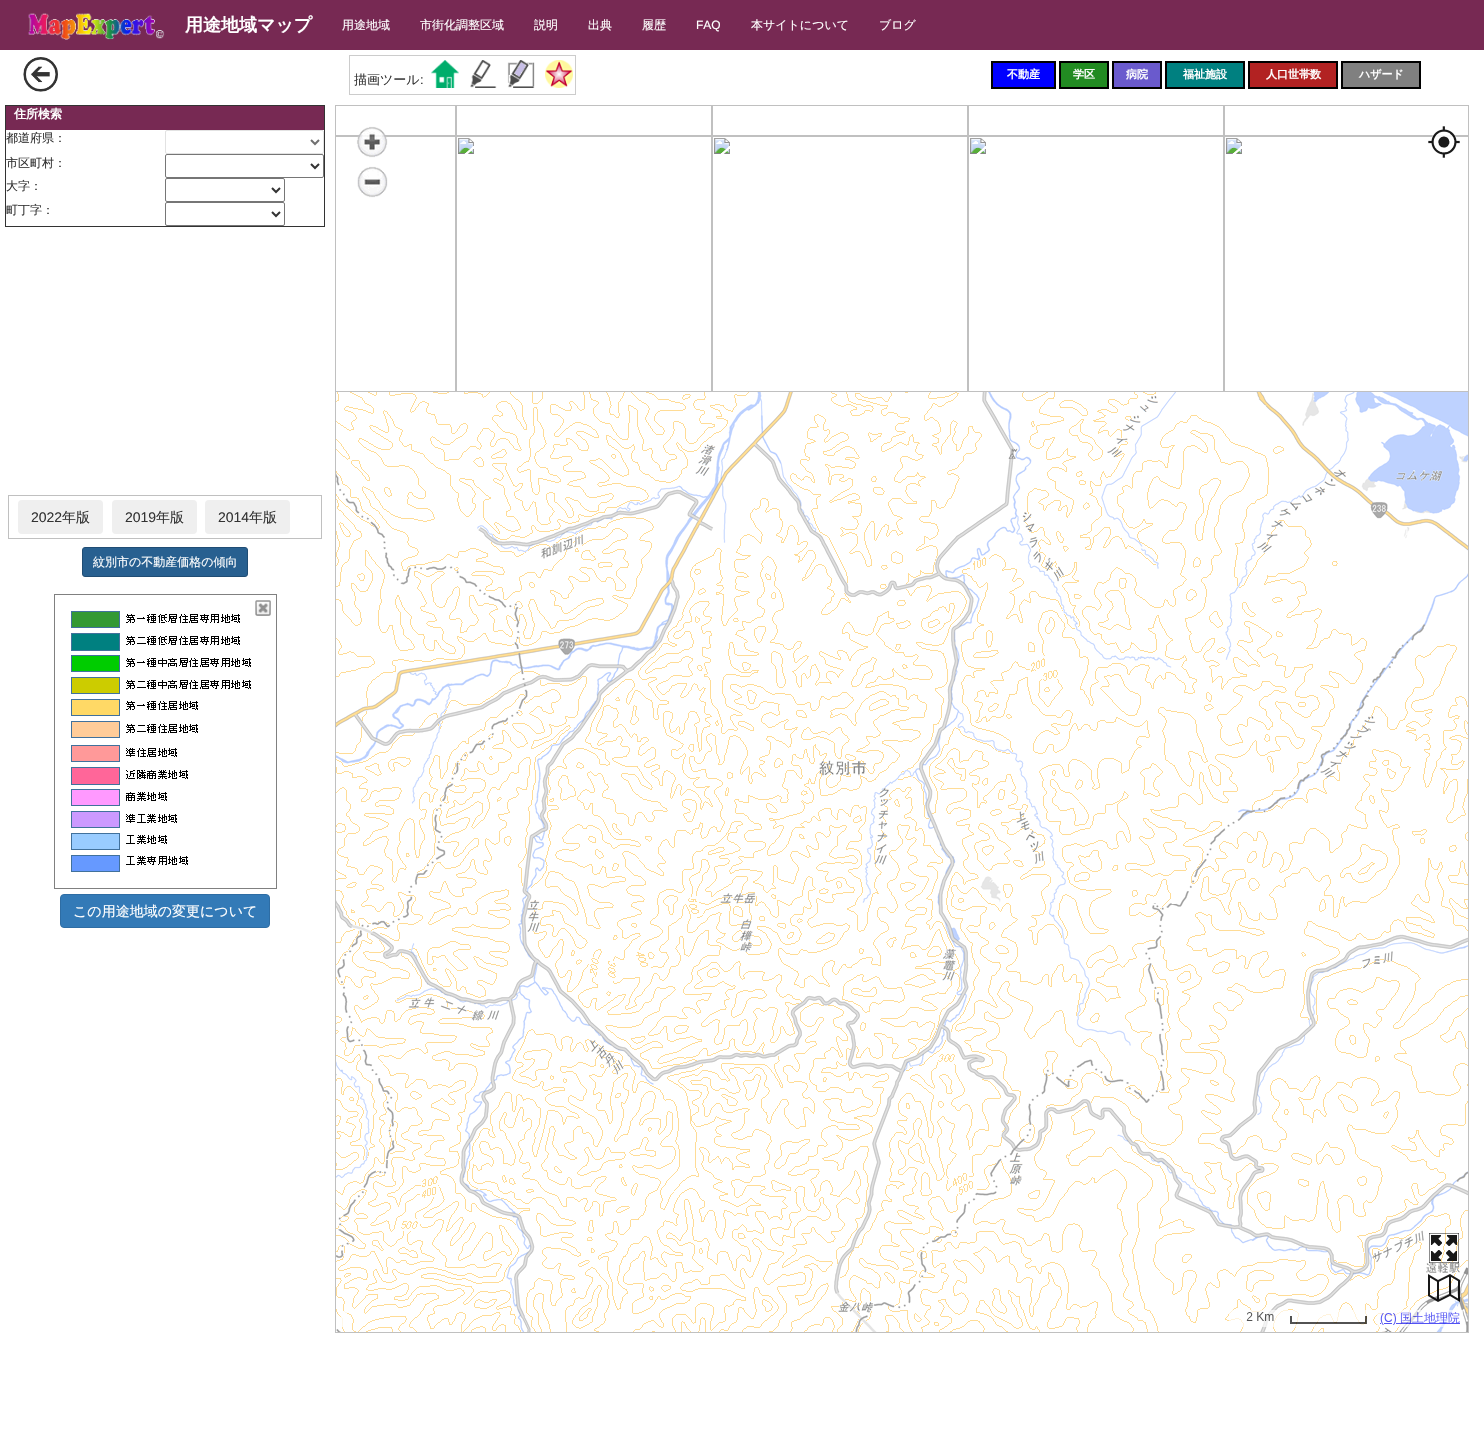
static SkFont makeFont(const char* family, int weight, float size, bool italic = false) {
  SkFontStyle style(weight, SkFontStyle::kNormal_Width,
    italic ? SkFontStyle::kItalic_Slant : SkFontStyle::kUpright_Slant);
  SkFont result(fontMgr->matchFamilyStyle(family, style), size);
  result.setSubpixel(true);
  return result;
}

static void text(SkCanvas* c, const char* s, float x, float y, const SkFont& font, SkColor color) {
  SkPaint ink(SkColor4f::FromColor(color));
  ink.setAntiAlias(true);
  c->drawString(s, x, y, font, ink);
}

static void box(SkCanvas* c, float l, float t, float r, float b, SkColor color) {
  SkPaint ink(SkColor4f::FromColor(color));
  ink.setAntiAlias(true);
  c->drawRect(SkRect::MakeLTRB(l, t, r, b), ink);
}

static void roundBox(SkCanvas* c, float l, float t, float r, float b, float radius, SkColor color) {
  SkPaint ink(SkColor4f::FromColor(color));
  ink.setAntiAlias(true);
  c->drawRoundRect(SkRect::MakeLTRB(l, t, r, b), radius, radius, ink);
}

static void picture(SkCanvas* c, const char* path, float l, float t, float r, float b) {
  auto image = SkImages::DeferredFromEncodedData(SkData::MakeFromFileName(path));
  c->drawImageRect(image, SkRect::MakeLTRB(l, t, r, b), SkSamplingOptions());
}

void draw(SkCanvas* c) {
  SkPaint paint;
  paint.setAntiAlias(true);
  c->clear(0xffffffff);
  box(c, 0, 0, 1484, 50, 0xff772953);
  picture(c, "img_01.png", 28, 13, 165, 40);
  SkFont face1 = makeFont("WenQuanYi Zen Hei", 700, 18);
  text(c, "用途地域マップ", 185, 31, face1, 0xffffffff);
  SkFont face2 = makeFont("WenQuanYi Zen Hei", 500, 12);
  text(c, "用途地域", 342, 29, face2, 0xffffffff);
  text(c, "市街化調整区域", 420, 29, face2, 0xffffffff);
  text(c, "説明", 534, 29, face2, 0xffffffff);
  text(c, "出典", 588, 29, face2, 0xffffffff);
  text(c, "履歴", 642, 29, face2, 0xffffffff);
  SkFont face3 = makeFont("Liberation Sans", 400, 12);
  text(c, "FAQ", 696, 29, face3, 0xffffffff);
  text(c, "本サイトについて", 751, 29, face2, 0xffffffff);
  text(c, "ブログ", 879, 29, face2, 0xffffffff);
  picture(c, "img_02.png", 23, 57, 58, 92);
  paint.setStyle(SkPaint::kStroke_Style);
  paint.setStrokeWidth(1);
  paint.setColor(0xffcccccc);
  c->drawRect(SkRect::MakeLTRB(349.5f, 55.5f, 575.5f, 94.5f), paint);
  SkFont face4 = makeFont("WenQuanYi Zen Hei", 500, 13);
  text(c, "描画ツール", 354, 84, face4, 0xff333333);
  SkFont face5 = makeFont("Liberation Sans", 400, 13);
  text(c, ":", 420, 84, face5, 0xff333333);
  picture(c, "img_03.png", 431, 60, 459, 88);
  picture(c, "img_04.png", 470, 60, 497, 88);
  picture(c, "img_05.png", 507, 60, 535, 88);
  picture(c, "img_06.png", 545, 60, 573, 88);
  paint.setStyle(SkPaint::kFill_Style);
  paint.setColor(0xff0000ff);
  c->drawRect(SkRect::MakeLTRB(992, 62, 1055, 88), paint);
  paint.setStyle(SkPaint::kStroke_Style);
  paint.setStrokeWidth(2);
  paint.setColor(0xff000000);
  c->drawRect(SkRect::MakeLTRB(992, 62, 1055, 88), paint);
  SkFont face6 = makeFont("WenQuanYi Zen Hei", 700, 11);
  text(c, "不動産", 1007, 78, face6, 0xffffffff);
  paint.setStyle(SkPaint::kFill_Style);
  paint.setColor(0xff228b22);
  c->drawRect(SkRect::MakeLTRB(1060, 62, 1108, 88), paint);
  paint.setStyle(SkPaint::kStroke_Style);
  paint.setColor(0xff000000);
  c->drawRect(SkRect::MakeLTRB(1060, 62, 1108, 88), paint);
  text(c, "学区", 1073, 78, face6, 0xffffffff);
  paint.setStyle(SkPaint::kFill_Style);
  paint.setColor(0xff6a5acd);
  c->drawRect(SkRect::MakeLTRB(1113, 62, 1161, 88), paint);
  paint.setStyle(SkPaint::kStroke_Style);
  paint.setColor(0xff000000);
  c->drawRect(SkRect::MakeLTRB(1113, 62, 1161, 88), paint);
  text(c, "病院", 1126, 78, face6, 0xffffffff);
  paint.setStyle(SkPaint::kFill_Style);
  paint.setColor(0xff008080);
  c->drawRect(SkRect::MakeLTRB(1166, 62, 1244, 88), paint);
  paint.setStyle(SkPaint::kStroke_Style);
  paint.setColor(0xff000000);
  c->drawRect(SkRect::MakeLTRB(1166, 62, 1244, 88), paint);
  text(c, "福祉施設", 1183, 78, face6, 0xffffffff);
  paint.setStyle(SkPaint::kFill_Style);
  paint.setColor(0xffb22222);
  c->drawRect(SkRect::MakeLTRB(1249, 62, 1337, 88), paint);
  paint.setStyle(SkPaint::kStroke_Style);
  paint.setColor(0xff000000);
  c->drawRect(SkRect::MakeLTRB(1249, 62, 1337, 88), paint);
  text(c, "人口世帯数", 1266, 78, face6, 0xffffffff);
  paint.setStyle(SkPaint::kFill_Style);
  paint.setColor(0xff808080);
  c->drawRect(SkRect::MakeLTRB(1342, 62, 1420, 88), paint);
  paint.setStyle(SkPaint::kStroke_Style);
  paint.setColor(0xff000000);
  c->drawRect(SkRect::MakeLTRB(1342, 62, 1420, 88), paint);
  text(c, "ハザード", 1359, 78, face6, 0xffffffff);
  paint.setStrokeWidth(1);
  paint.setColor(0xff333333);
  c->drawRect(SkRect::MakeLTRB(5.5f, 105.5f, 324.5f, 226.5f), paint);
  box(c, 6, 106, 324, 130, 0xff772953);
  SkFont face7 = makeFont("WenQuanYi Zen Hei", 700, 12);
  text(c, "住所検索", 14, 118, face7, 0xffffffff);
  text(c, "都道府県：", 6, 142, face2, 0xff333333);
  paint.setColor(0xffe2e2e2);
  c->drawRoundRect(SkRect::MakeLTRB(165.5f, 130.5f, 323.5f, 153.5f), 1.5f, 1.5f, paint);
  paint.setStrokeWidth(2);
  paint.setColor(0xff707070);
  c->drawPath(SkPathBuilder().moveTo(311, 140).lineTo(315, 144).lineTo(319, 140).detach(), paint);
  text(c, "市区町村：", 6, 167, face2, 0xff333333);
  paint.setStrokeWidth(1);
  paint.setColor(0xff767676);
  c->drawRoundRect(SkRect::MakeLTRB(165.5f, 154.5f, 323.5f, 177.5f), 1.5f, 1.5f, paint);
  paint.setStrokeWidth(2);
  paint.setColor(0xff333333);
  c->drawPath(SkPathBuilder().moveTo(311, 164).lineTo(315, 168).lineTo(319, 164).detach(), paint);
  text(c, "大字：", 6, 190, face2, 0xff333333);
  paint.setStrokeWidth(1);
  paint.setColor(0xff767676);
  c->drawRoundRect(SkRect::MakeLTRB(165.5f, 178.5f, 284.5f, 201.5f), 1.5f, 1.5f, paint);
  paint.setStrokeWidth(2);
  paint.setColor(0xff333333);
  c->drawPath(SkPathBuilder().moveTo(272, 188).lineTo(276, 192).lineTo(280, 188).detach(), paint);
  text(c, "町丁字：", 6, 214, face2, 0xff333333);
  paint.setStrokeWidth(1);
  paint.setColor(0xff767676);
  c->drawRoundRect(SkRect::MakeLTRB(165.5f, 202.5f, 284.5f, 225.5f), 1.5f, 1.5f, paint);
  paint.setStrokeWidth(2);
  paint.setColor(0xff333333);
  c->drawPath(SkPathBuilder().moveTo(272, 212).lineTo(276, 216).lineTo(280, 212).detach(), paint);
  paint.setStrokeWidth(1);
  paint.setColor(0xffc0c0c0);
  c->drawRect(SkRect::MakeLTRB(8.5f, 495.5f, 321.5f, 538.5f), paint);
  roundBox(c, 18, 500, 103, 534, 4, 0xffefefef);
  SkFont face8 = makeFont("Liberation Sans", 400, 14);
  text(c, "2022", 31, 522, face8, 0xff333333);
  SkFont face9 = makeFont("WenQuanYi Zen Hei", 500, 14);
  text(c, "年版", 62, 522, face9, 0xff333333);
  roundBox(c, 112, 500, 197, 534, 4, 0xffefefef);
  text(c, "2019", 125, 522, face8, 0xff333333);
  text(c, "年版", 156, 522, face9, 0xff333333);
  roundBox(c, 205, 500, 290, 534, 4, 0xffefefef);
  text(c, "2014", 218, 522, face8, 0xff333333);
  text(c, "年版", 249, 522, face9, 0xff333333);
  paint.setStyle(SkPaint::kFill_Style);
  paint.setColor(0xff286090);
  c->drawRoundRect(SkRect::MakeLTRB(82.5f, 547.5f, 247.5f, 576.5f), 2.5f, 2.5f, paint);
  paint.setStyle(SkPaint::kStroke_Style);
  paint.setColor(0xff204d74);
  c->drawRoundRect(SkRect::MakeLTRB(82.5f, 547.5f, 247.5f, 576.5f), 2.5f, 2.5f, paint);
  text(c, "紋別市の不動産価格の傾向", 93, 566, face2, 0xffffffff);
  paint.setColor(0xff808080);
  c->drawRect(SkRect::MakeLTRB(54.5f, 594.5f, 276.5f, 888.5f), paint);
  picture(c, "img_07.png", 255, 600, 271, 616);
  picture(c, "img_08.png", 71, 611, 251, 872);
  paint.setStyle(SkPaint::kFill_Style);
  paint.setColor(0xff337ab7);
  c->drawRoundRect(SkRect::MakeLTRB(60.5f, 894.5f, 269.5f, 927.5f), 3.5f, 3.5f, paint);
  paint.setStyle(SkPaint::kStroke_Style);
  paint.setColor(0xff2e6da4);
  c->drawRoundRect(SkRect::MakeLTRB(60.5f, 894.5f, 269.5f, 927.5f), 3.5f, 3.5f, paint);
  text(c, "この用途地域の変更について", 73, 916, face9, 0xffffffff);
  paint.setColor(0xffc0c0c0);
  c->drawRect(SkRect::MakeLTRB(335.5f, 105.5f, 1468.5f, 1332.5f), paint);
  picture(c, "img_09.png", 336, 106, 1468, 1332);
}
